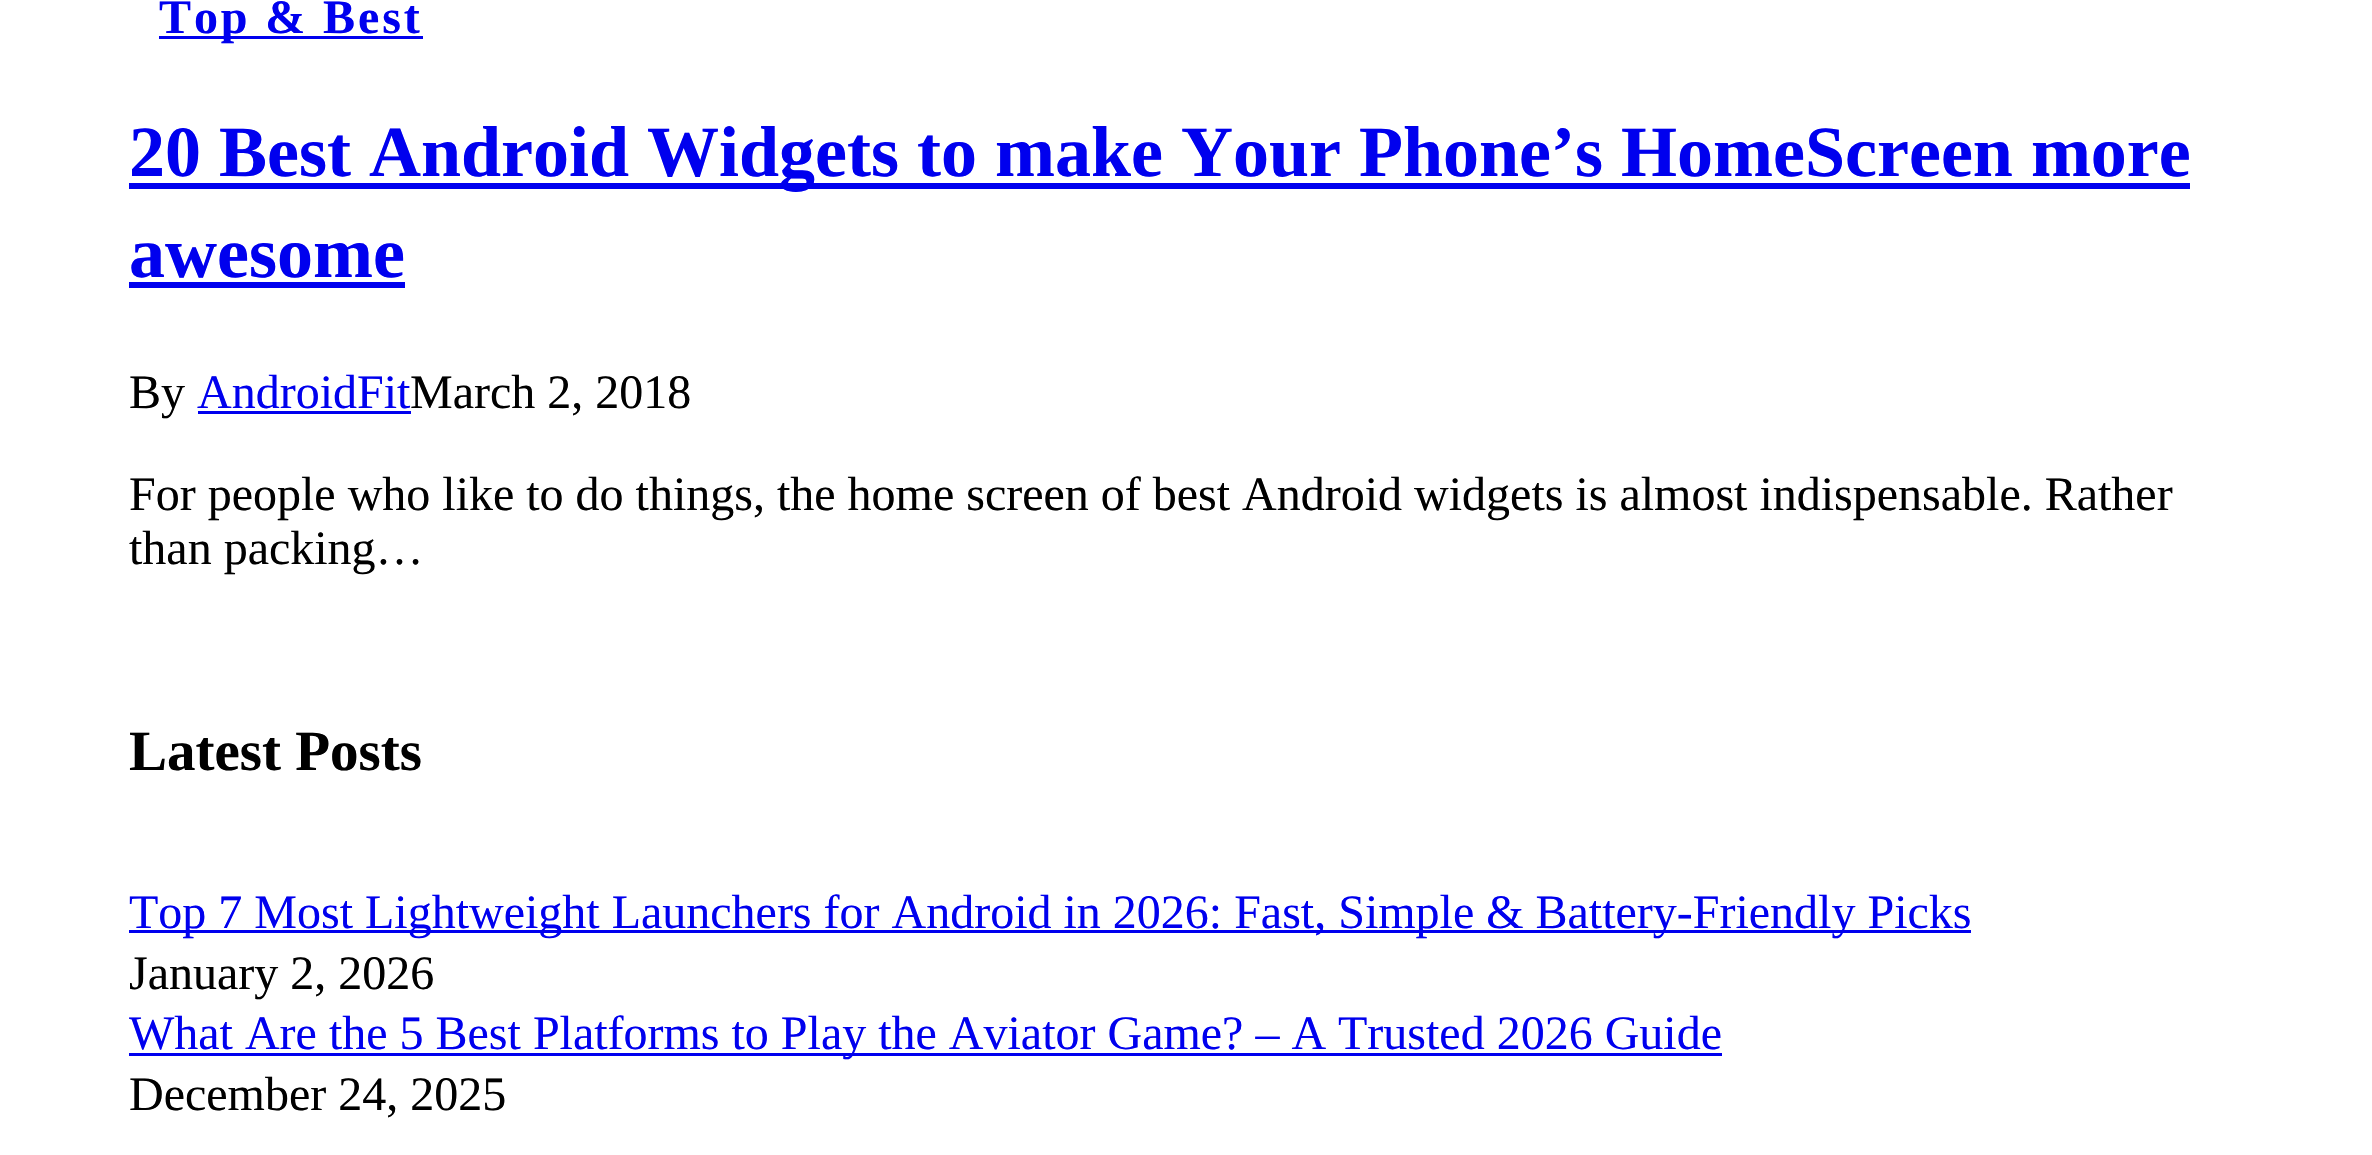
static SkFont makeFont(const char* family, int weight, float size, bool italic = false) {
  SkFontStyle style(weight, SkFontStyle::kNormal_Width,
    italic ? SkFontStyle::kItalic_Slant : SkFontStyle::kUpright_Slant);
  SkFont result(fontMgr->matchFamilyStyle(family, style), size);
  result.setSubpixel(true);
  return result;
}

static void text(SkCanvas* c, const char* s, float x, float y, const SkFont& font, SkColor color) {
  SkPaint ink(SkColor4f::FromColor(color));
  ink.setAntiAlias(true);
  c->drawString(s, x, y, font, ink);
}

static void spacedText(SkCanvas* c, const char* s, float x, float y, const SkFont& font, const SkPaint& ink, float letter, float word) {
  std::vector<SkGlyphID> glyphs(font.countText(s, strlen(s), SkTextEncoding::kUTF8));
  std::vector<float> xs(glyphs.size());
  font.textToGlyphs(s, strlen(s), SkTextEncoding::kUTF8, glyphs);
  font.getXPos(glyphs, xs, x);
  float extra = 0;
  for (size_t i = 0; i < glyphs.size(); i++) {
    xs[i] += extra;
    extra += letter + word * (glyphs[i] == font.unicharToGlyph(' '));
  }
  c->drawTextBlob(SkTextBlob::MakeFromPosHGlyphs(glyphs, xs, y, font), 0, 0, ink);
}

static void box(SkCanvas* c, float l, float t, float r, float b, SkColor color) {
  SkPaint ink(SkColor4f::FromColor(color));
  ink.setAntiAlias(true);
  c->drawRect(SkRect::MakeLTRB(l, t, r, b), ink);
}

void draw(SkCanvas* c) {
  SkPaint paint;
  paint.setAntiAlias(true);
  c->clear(0xffffffff);
  box(c, 159, 36, 423, 39, 0xff0000ee);
  SkFont face1 = makeFont("Liberation Serif", 700, 48);
  paint.setColor(0xff0000ee);
  spacedText(c, "Top & Best", 159, 33, face1, paint, 2.9f, 0);
  box(c, 129, 183, 2190, 189, 0xff0000ee);
  SkFont face2 = makeFont("Liberation Serif", 700, 72);
  text(c, "20 Best Android Widgets to make Your Phone’s HomeScreen more", 129, 176, face2, 0xff0000ee);
  text(c, "awesome", 129, 277, face2, 0xff0000ee);
  box(c, 129, 282, 405, 288, 0xff0000ee);
  SkFont face3 = makeFont("Liberation Serif", 400, 48);
  text(c, "By", 129, 408, face3, 0xff000000);
  text(c, "AndroidFit", 197, 408, face3, 0xff0000ee);
  box(c, 198, 411, 411, 414, 0xff0000ee);
  text(c, "March 2, 2018", 410, 408, face3, 0xff000000);
  text(c, "For people who like to do things, the home screen of best Android widgets is almost indispensable. Rather", 129, 510, face3, 0xff000000);
  text(c, "than packing…", 129, 564, face3, 0xff000000);
  SkFont face4 = makeFont("Liberation Serif", 700, 57);
  text(c, "Latest Posts", 129, 770, face4, 0xff000000);
  box(c, 129, 930, 1971, 933, 0xff0000ee);
  text(c, "Top 7 Most Lightweight Launchers for Android in 2026: Fast, Simple & Battery-Friendly Picks", 129, 928, face3, 0xff0000ee);
  text(c, "January 2, 2026", 129, 989, face3, 0xff000000);
  box(c, 129, 1053, 1722, 1056, 0xff0000ee);
  text(c, "What Are the 5 Best Platforms to Play the Aviator Game? – A Trusted 2026 Guide", 129, 1049, face3, 0xff0000ee);
  text(c, "December 24, 2025", 129, 1110, face3, 0xff000000);
}
